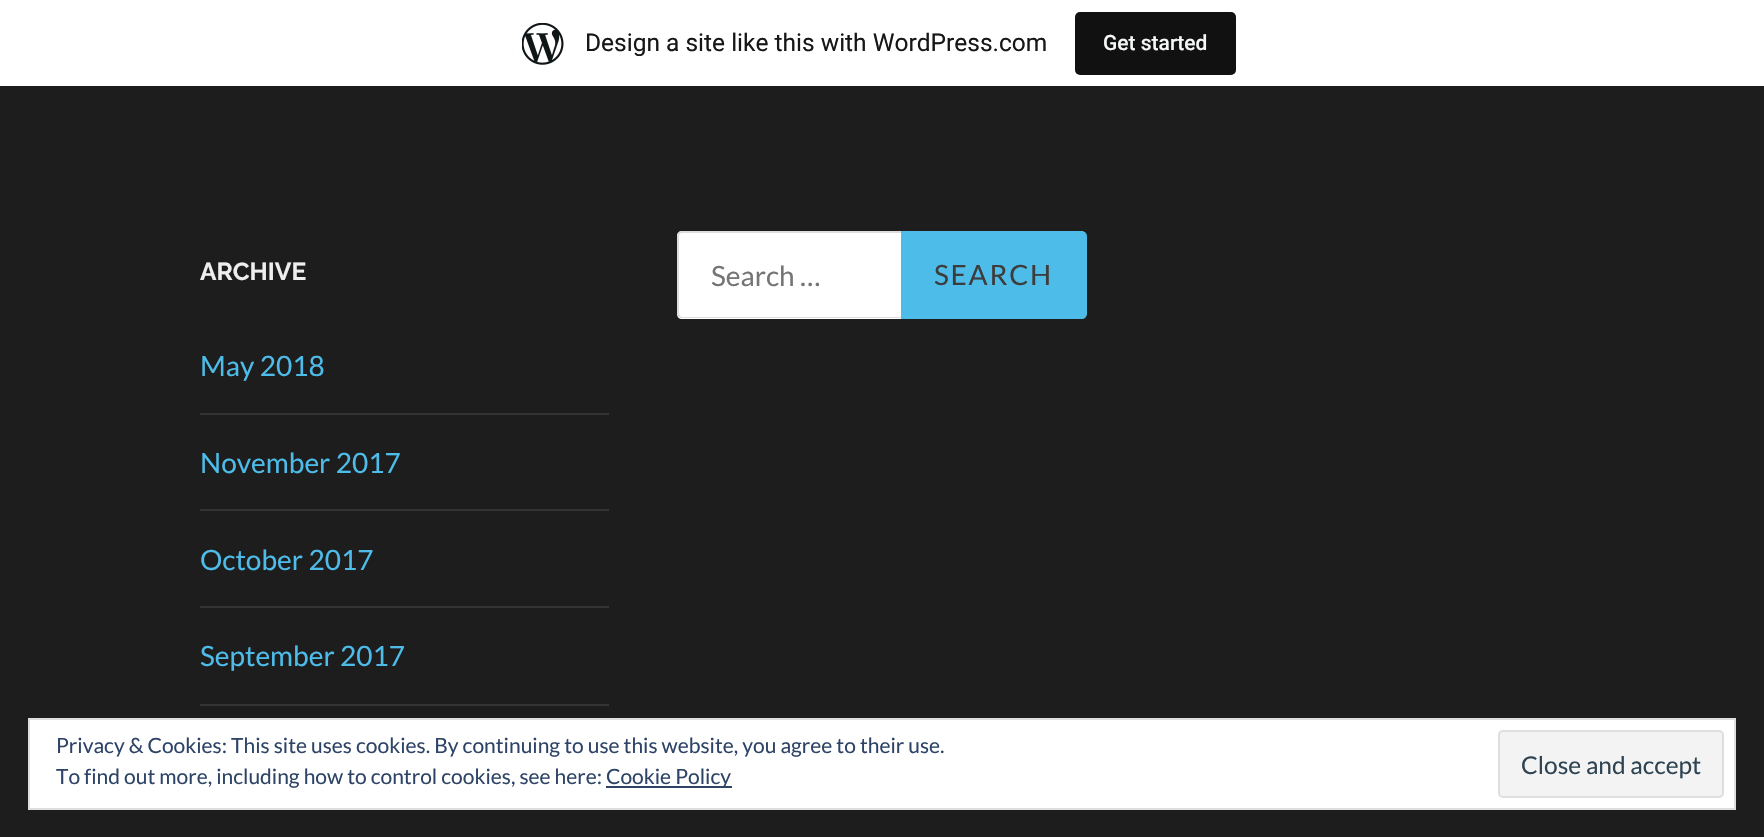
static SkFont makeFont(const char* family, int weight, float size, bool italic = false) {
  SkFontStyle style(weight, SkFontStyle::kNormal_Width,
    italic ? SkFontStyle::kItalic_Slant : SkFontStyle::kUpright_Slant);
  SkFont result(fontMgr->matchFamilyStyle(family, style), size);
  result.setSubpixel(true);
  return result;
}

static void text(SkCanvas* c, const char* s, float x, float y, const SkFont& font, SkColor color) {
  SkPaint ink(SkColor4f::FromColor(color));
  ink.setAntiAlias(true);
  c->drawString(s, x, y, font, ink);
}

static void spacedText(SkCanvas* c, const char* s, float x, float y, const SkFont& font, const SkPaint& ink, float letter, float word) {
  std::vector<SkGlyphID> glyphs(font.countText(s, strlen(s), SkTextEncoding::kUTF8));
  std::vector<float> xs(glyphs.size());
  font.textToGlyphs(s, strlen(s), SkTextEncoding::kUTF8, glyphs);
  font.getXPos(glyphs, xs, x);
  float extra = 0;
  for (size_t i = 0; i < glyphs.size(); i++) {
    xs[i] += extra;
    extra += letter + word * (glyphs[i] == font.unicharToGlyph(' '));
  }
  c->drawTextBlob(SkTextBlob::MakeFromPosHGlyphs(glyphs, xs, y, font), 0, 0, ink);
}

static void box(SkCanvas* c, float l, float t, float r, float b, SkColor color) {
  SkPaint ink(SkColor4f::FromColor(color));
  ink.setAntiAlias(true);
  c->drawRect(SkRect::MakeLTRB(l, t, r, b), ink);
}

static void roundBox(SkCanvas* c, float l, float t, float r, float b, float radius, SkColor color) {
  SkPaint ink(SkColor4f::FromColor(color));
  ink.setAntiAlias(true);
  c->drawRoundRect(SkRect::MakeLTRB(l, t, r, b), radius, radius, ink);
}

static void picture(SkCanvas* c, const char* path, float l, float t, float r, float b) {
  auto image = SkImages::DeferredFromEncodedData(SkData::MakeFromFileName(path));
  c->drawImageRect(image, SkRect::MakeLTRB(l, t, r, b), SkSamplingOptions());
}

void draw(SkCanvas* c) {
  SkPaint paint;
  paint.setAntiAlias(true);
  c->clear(0xff1d1d1d);
  box(c, 0, 0, 1764, 86, 0xffffffff);
  picture(c, "img_01.png", 522, 23, 564, 65);
  SkFont face1 = makeFont("Roboto", 400, 24.5f);
  text(c, "Design a site like this with WordPress.com", 585, 51, face1, 0xff171717);
  roundBox(c, 1075, 12, 1236, 75, 5, 0xff111111);
  SkFont face2 = makeFont("Roboto", 500, 21);
  text(c, "Get started", 1103, 50, face2, 0xfff6f7f7);
  SkFont face3 = makeFont("Raleway", 700, 24.5f);
  text(c, "ARCHIVE", 200, 280, face3, 0xffeeeeee);
  SkFont face4 = makeFont("Lato", 400, 28);
  text(c, "May 2018", 200, 376, face4, 0xff4dbce9);
  box(c, 200, 413, 609, 415, 0xff343434);
  text(c, "November 2017", 200, 473, face4, 0xff4dbce9);
  box(c, 200, 509, 609, 511, 0xff343434);
  text(c, "October 2017", 200, 570, face4, 0xff4dbce9);
  box(c, 200, 606, 609, 608, 0xff343434);
  text(c, "September 2017", 200, 666, face4, 0xff4dbce9);
  box(c, 200, 704, 609, 706, 0xff343434);
  paint.setColor(0xffffffff);
  c->drawPath(SkPathBuilder().moveTo(682, 231).lineTo(1083, 231).lineTo(1083, 319).lineTo(682, 319).cubicTo(679, 319, 677, 317, 677, 314).lineTo(677, 236).cubicTo(677, 233, 679, 231, 682, 231).close().detach(), paint);
  paint.setColor(0xffdddddd);
  c->drawPath(SkPathBuilder(SkPathFillType::kEvenOdd).moveTo(682, 231).lineTo(1083, 231).lineTo(1083, 318).lineTo(682, 318).cubicTo(680, 318, 677, 316, 677, 313).lineTo(677, 236).cubicTo(677, 233, 680, 231, 682, 231).close().moveTo(682, 233).lineTo(1083, 233).lineTo(1083, 317).lineTo(682, 317).cubicTo(681, 317, 679, 315, 679, 313).lineTo(679, 236).cubicTo(679, 234, 681, 233, 682, 233).close().detach(), paint);
  text(c, "Search …", 711, 286, face4, 0xff757575);
  paint.setColor(0xff4dbce9);
  c->drawPath(SkPathBuilder().moveTo(902, 232).lineTo(1082, 232).cubicTo(1084, 232, 1086, 234, 1086, 236).lineTo(1086, 314).cubicTo(1086, 316, 1084, 318, 1082, 318).lineTo(902, 318).close().detach(), paint);
  paint.setStyle(SkPaint::kStroke_Style);
  paint.setStrokeWidth(2);
  c->drawPath(SkPathBuilder().moveTo(902, 232).lineTo(1082, 232).cubicTo(1084, 232, 1086, 234, 1086, 236).lineTo(1086, 314).cubicTo(1086, 316, 1084, 318, 1082, 318).lineTo(902, 318).close().detach(), paint);
  paint.setStyle(SkPaint::kFill_Style);
  paint.setColor(0xff3d3d3d);
  spacedText(c, "SEARCH", 934, 285, face4, paint, 1.75f, 0);
  paint.setColor(0xffffffff);
  c->drawRect(SkRect::MakeLTRB(29, 719, 1735, 809), paint);
  paint.setStyle(SkPaint::kStroke_Style);
  paint.setColor(0xffdedede);
  c->drawRect(SkRect::MakeLTRB(29, 719, 1735, 809), paint);
  SkFont face5 = makeFont("Lato", 400, 21);
  text(c, "Privacy & Cookies: This site uses cookies. By continuing to use this website, you agree to their use.", 56, 753, face5, 0xff2e4467);
  text(c, "To find out more, including how to control cookies, see here:", 56, 784, face5, 0xff2e4467);
  box(c, 606, 786, 732, 788, 0xff2e4467);
  text(c, "Cookie Policy", 606, 784, face5, 0xff2e4467);
  paint.setStyle(SkPaint::kFill_Style);
  paint.setColor(0xfff3f3f3);
  c->drawRoundRect(SkRect::MakeLTRB(1499, 731, 1723, 797), 4, 4, paint);
  paint.setStyle(SkPaint::kStroke_Style);
  paint.setColor(0xffdedede);
  c->drawRoundRect(SkRect::MakeLTRB(1499, 731, 1723, 797), 4, 4, paint);
  SkFont face6 = makeFont("Lato", 400, 24.5f);
  text(c, "Close and accept", 1521, 774, face6, 0xff2e4453);
}
